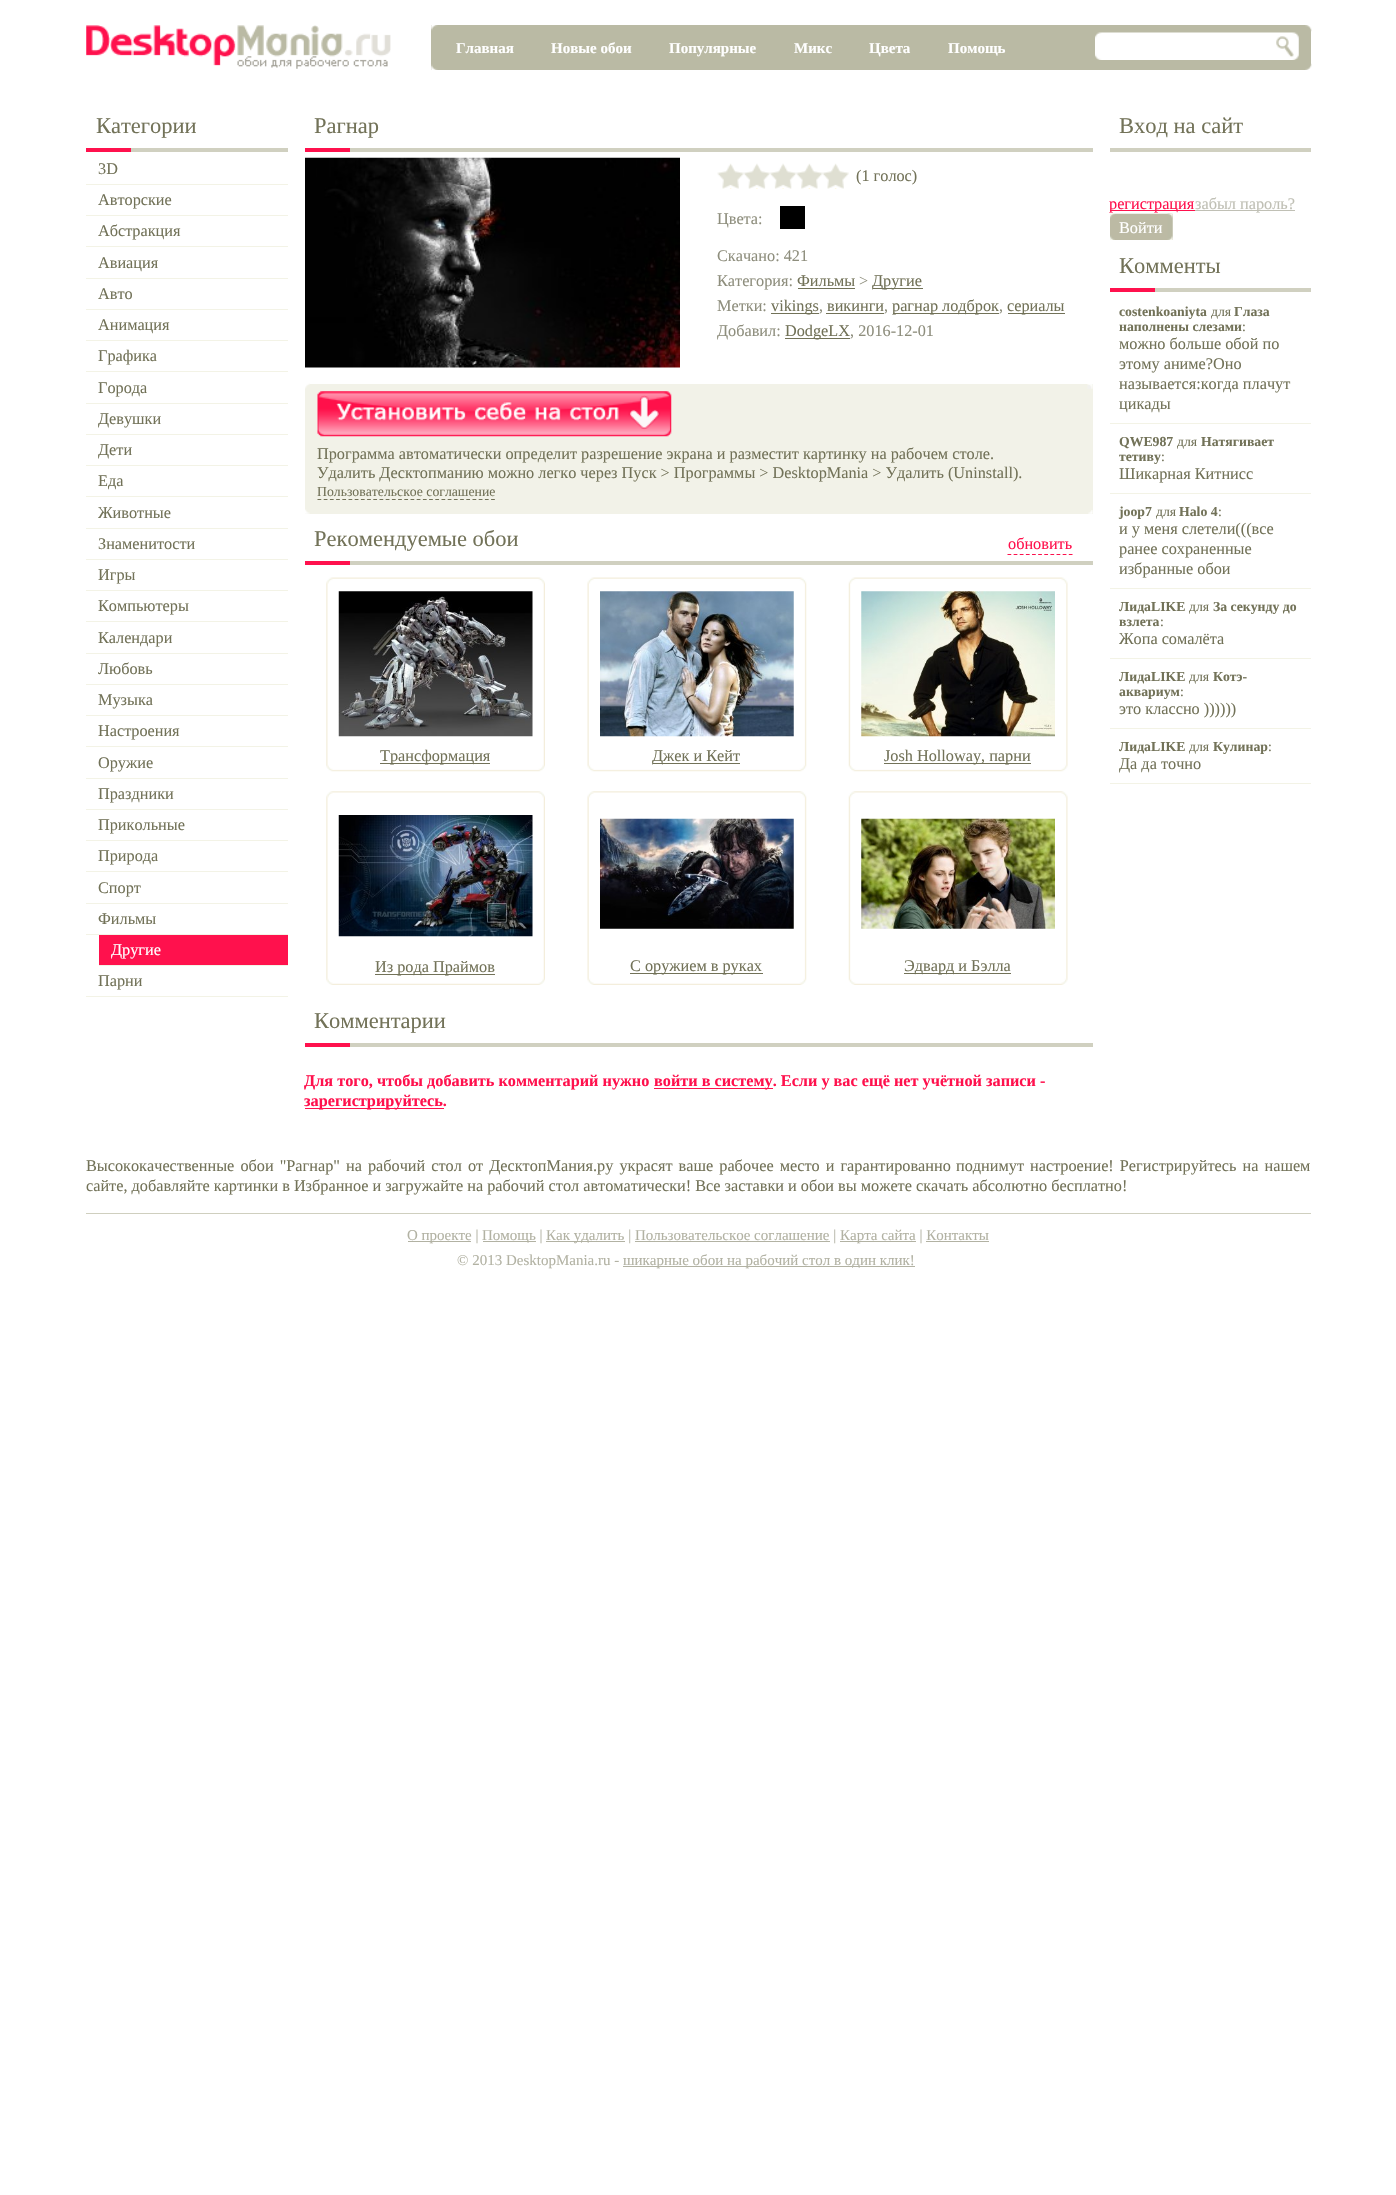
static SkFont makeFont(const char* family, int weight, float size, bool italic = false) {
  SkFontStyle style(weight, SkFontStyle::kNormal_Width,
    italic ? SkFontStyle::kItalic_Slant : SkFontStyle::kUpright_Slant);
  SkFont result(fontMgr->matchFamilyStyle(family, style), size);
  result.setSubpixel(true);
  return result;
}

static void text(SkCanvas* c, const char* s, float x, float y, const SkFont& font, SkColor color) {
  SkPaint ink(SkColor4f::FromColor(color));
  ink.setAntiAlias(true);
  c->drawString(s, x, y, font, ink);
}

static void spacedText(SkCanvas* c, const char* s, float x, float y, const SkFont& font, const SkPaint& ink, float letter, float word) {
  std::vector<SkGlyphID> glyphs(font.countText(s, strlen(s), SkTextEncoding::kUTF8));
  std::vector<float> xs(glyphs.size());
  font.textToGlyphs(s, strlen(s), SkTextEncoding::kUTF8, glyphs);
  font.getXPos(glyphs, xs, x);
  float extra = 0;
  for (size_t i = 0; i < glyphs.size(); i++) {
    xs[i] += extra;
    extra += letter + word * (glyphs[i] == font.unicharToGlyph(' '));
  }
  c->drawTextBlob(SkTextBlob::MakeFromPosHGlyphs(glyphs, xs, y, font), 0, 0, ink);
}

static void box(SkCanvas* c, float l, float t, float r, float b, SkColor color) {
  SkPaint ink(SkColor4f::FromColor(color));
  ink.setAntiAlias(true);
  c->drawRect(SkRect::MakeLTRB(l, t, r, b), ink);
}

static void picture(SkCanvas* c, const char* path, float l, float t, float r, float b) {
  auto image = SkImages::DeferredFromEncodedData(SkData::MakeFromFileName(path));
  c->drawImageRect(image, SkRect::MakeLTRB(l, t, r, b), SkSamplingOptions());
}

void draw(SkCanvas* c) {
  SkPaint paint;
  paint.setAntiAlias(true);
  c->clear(0xffffffff);
  picture(c, "img_01.png", 86, 25, 391, 69);
  box(c, 431, 25, 1311, 70, 0xffbabaa4);
  picture(c, "img_02.png", 431, 25, 438, 31);
  picture(c, "img_03.png", 1305, 25, 1312, 32);
  SkFont face1 = makeFont("Liberation Serif", 700, 15);
  text(c, "Главная", 456, 53, face1, 0xffffffff);
  text(c, "Новые обои", 551, 53, face1, 0xffffffff);
  text(c, "Популярные", 669, 53, face1, 0xffffffff);
  text(c, "Микс", 794, 53, face1, 0xffffffff);
  text(c, "Цвета", 869, 53, face1, 0xffffffff);
  text(c, "Помощь", 948, 53, face1, 0xffffffff);
  picture(c, "img_04.png", 1095, 32, 1299, 60);
  box(c, 1104, 39, 1209, 53, 0xffffffff);
  picture(c, "img_05.png", 431, 64, 438, 70);
  picture(c, "img_06.png", 1305, 63, 1312, 70);
  box(c, 131, 148, 288, 152, 0xffd0d0c0);
  SkFont face2 = makeFont("Liberation Serif", 400, 22.5f);
  text(c, "Категории", 96, 133, face2, 0xff727258);
  box(c, 86, 148, 131, 152, 0xffff114d);
  box(c, 86, 184, 288, 185, 0xfff3f3e6);
  SkFont face3 = makeFont("Liberation Serif", 400, 16.25f);
  text(c, "3D", 98, 174, face3, 0xff727258);
  box(c, 86, 215, 288, 216, 0xfff3f3e6);
  text(c, "Авторские", 98, 205, face3, 0xff727258);
  box(c, 86, 246, 288, 247, 0xfff3f3e6);
  text(c, "Абстракция", 98, 236, face3, 0xff727258);
  box(c, 86, 278, 288, 279, 0xfff3f3e6);
  text(c, "Авиация", 98, 268, face3, 0xff727258);
  box(c, 86, 309, 288, 310, 0xfff3f3e6);
  text(c, "Авто", 98, 299, face3, 0xff727258);
  box(c, 86, 340, 288, 341, 0xfff3f3e6);
  text(c, "Анимация", 98, 330, face3, 0xff727258);
  box(c, 86, 371, 288, 372, 0xfff3f3e6);
  text(c, "Графика", 98, 361, face3, 0xff727258);
  box(c, 86, 403, 288, 404, 0xfff3f3e6);
  text(c, "Города", 98, 393, face3, 0xff727258);
  box(c, 86, 434, 288, 435, 0xfff3f3e6);
  text(c, "Девушки", 98, 424, face3, 0xff727258);
  box(c, 86, 465, 288, 466, 0xfff3f3e6);
  text(c, "Дети", 98, 455, face3, 0xff727258);
  box(c, 86, 496, 288, 497, 0xfff3f3e6);
  text(c, "Еда", 98, 486, face3, 0xff727258);
  box(c, 86, 528, 288, 529, 0xfff3f3e6);
  text(c, "Животные", 98, 518, face3, 0xff727258);
  box(c, 86, 559, 288, 560, 0xfff3f3e6);
  text(c, "Знаменитости", 98, 549, face3, 0xff727258);
  box(c, 86, 590, 288, 591, 0xfff3f3e6);
  text(c, "Игры", 98, 580, face3, 0xff727258);
  box(c, 86, 621, 288, 622, 0xfff3f3e6);
  text(c, "Компьютеры", 98, 611, face3, 0xff727258);
  box(c, 86, 653, 288, 654, 0xfff3f3e6);
  text(c, "Календари", 98, 643, face3, 0xff727258);
  box(c, 86, 684, 288, 685, 0xfff3f3e6);
  text(c, "Любовь", 98, 674, face3, 0xff727258);
  box(c, 86, 715, 288, 716, 0xfff3f3e6);
  text(c, "Музыка", 98, 705, face3, 0xff727258);
  box(c, 86, 746, 288, 747, 0xfff3f3e6);
  text(c, "Настроения", 98, 736, face3, 0xff727258);
  box(c, 86, 778, 288, 779, 0xfff3f3e6);
  text(c, "Оружие", 98, 768, face3, 0xff727258);
  box(c, 86, 809, 288, 810, 0xfff3f3e6);
  text(c, "Праздники", 98, 799, face3, 0xff727258);
  box(c, 86, 840, 288, 841, 0xfff3f3e6);
  text(c, "Прикольные", 98, 830, face3, 0xff727258);
  box(c, 86, 871, 288, 872, 0xfff3f3e6);
  text(c, "Природа", 98, 861, face3, 0xff727258);
  box(c, 86, 903, 288, 904, 0xfff3f3e6);
  text(c, "Спорт", 98, 893, face3, 0xff727258);
  box(c, 86, 934, 288, 935, 0xfff3f3e6);
  text(c, "Фильмы", 98, 924, face3, 0xff727258);
  box(c, 99, 935, 288, 965, 0xffff114d);
  box(c, 99, 965, 288, 966, 0xfff3f3e6);
  text(c, "Другие", 111, 955, face3, 0xffffffff);
  box(c, 86, 996, 288, 997, 0xfff3f3e6);
  text(c, "Парни", 98, 986, face3, 0xff727258);
  box(c, 350, 148, 1093, 152, 0xffd0d0c0);
  text(c, "Рагнар", 314, 133, face2, 0xff727258);
  box(c, 305, 148, 350, 152, 0xffff114d);
  picture(c, "img_07.png", 305, 157, 680, 368);
  picture(c, "img_08.png", 717, 163, 849, 189);
  text(c, "(1 голос)", 856, 181, face3, 0xff727258);
  text(c, "Цвета:", 717, 224, face3, 0xff8e8e7d);
  box(c, 780, 206, 805, 229, 0xff000000);
  text(c, "Скачано: 421", 717, 261, face3, 0xff8e8e7d);
  text(c, "Категория:", 717, 286, face3, 0xff8e8e7d);
  text(c, "Фильмы", 797, 286, face3, 0xff727258);
  box(c, 798, 288, 855, 289, 0xff727258);
  text(c, ">", 859, 286, face3, 0xff8e8e7d);
  box(c, 873, 288, 923, 289, 0xff727258);
  text(c, "Другие", 872, 286, face3, 0xff727258);
  text(c, "Метки:", 717, 311, face3, 0xff8e8e7d);
  box(c, 771, 313, 819, 314, 0xff727258);
  text(c, "vikings", 771, 311, face3, 0xff727258);
  text(c, ",", 819, 311, face3, 0xff8e8e7d);
  text(c, "викинги", 827, 311, face3, 0xff727258);
  box(c, 826, 313, 884, 314, 0xff727258);
  text(c, ",", 884, 311, face3, 0xff8e8e7d);
  box(c, 893, 313, 999, 314, 0xff727258);
  text(c, "рагнар лодброк", 892, 311, face3, 0xff727258);
  text(c, ",", 999, 311, face3, 0xff8e8e7d);
  box(c, 1008, 313, 1065, 314, 0xff727258);
  text(c, "сериалы", 1007, 311, face3, 0xff727258);
  text(c, "Добавил:", 717, 336, face3, 0xff8e8e7d);
  box(c, 785, 338, 850, 339, 0xff727258);
  text(c, "DodgeLX", 785, 336, face3, 0xff727258);
  text(c, ", 2016-12-01", 850, 336, face3, 0xff8e8e7d);
  box(c, 305, 384, 1093, 514, 0xfff2f2e8);
  picture(c, "img_09.png", 305, 383, 310, 389);
  picture(c, "img_10.png", 1087, 384, 1093, 389);
  picture(c, "img_11.png", 317, 391, 672, 437);
  text(c, "Программа автоматически определит разрешение экрана и разместит картинку на рабочем столе.", 317, 459, face3, 0xff727258);
  text(c, "Удалить Десктопманию можно легко через Пуск > Программы > DesktopMania > Удалить (Uninstall).", 317, 478, face3, 0xff727258);
  SkFont face4 = makeFont("Liberation Serif", 400, 13.75f);
  text(c, "Пользовательское соглашение", 317, 496, face4, 0xff727258);
  paint.setStyle(SkPaint::kStroke_Style);
  paint.setStrokeWidth(1.2f);
  paint.setColor(0xff727258);
  paint.setPathEffect(SkDashPathEffect::Make({{3.75f, 2.45f}}, 0));
  c->drawPath(SkPathBuilder().moveTo(317.5f, 499.5f).lineTo(495, 499.5f).detach(), paint);
  paint.setPathEffect(nullptr);
  picture(c, "img_12.png", 305, 509, 310, 514);
  picture(c, "img_13.png", 1088, 510, 1093, 514);
  box(c, 350, 561, 1093, 565, 0xffd0d0c0);
  text(c, "Рекомендуемые обои", 314, 546, face2, 0xff727258);
  paint.setColor(0xfffb114d);
  paint.setPathEffect(SkDashPathEffect::Make({{3.75f, 2.38f}}, 0));
  c->drawPath(SkPathBuilder().moveTo(1007.5f, 554.5f).lineTo(1072.5f, 554.5f).detach(), paint);
  paint.setPathEffect(nullptr);
  text(c, "обновить", 1008, 549, face3, 0xffff114d);
  box(c, 305, 561, 350, 565, 0xffff114d);
  picture(c, "img_14.png", 326, 577, 545, 772);
  picture(c, "img_15.png", 338, 591, 533, 737);
  box(c, 380, 763, 490, 764, 0xff727258);
  text(c, "Трансформация", 380, 761, face3, 0xff727258);
  picture(c, "img_16.png", 587, 577, 807, 772);
  picture(c, "img_17.png", 600, 591, 794, 737);
  box(c, 653, 763, 740, 764, 0xff727258);
  text(c, "Джек и Кейт", 652, 761, face3, 0xff727258);
  picture(c, "img_18.png", 848, 577, 1068, 772);
  picture(c, "img_19.png", 861, 591, 1055, 737);
  box(c, 884, 763, 1031, 764, 0xff727258);
  text(c, "Josh Holloway, парни", 884, 761, face3, 0xff727258);
  picture(c, "img_20.png", 326, 791, 545, 985);
  picture(c, "img_21.png", 338, 815, 533, 937);
  box(c, 375, 974, 495, 975, 0xff727258);
  text(c, "Из рода Праймов", 375, 972, face3, 0xff727258);
  picture(c, "img_22.png", 587, 791, 807, 985);
  picture(c, "img_23.png", 600, 818, 794, 929);
  box(c, 630, 973, 763, 974, 0xff727258);
  text(c, "С оружием в руках", 630, 971, face3, 0xff727258);
  picture(c, "img_24.png", 848, 791, 1068, 985);
  picture(c, "img_25.png", 861, 818, 1055, 929);
  box(c, 904, 973, 1011, 974, 0xff727258);
  text(c, "Эдвард и Бэлла", 904, 971, face3, 0xff727258);
  box(c, 350, 1043, 1093, 1047, 0xffd0d0c0);
  text(c, "Комментарии", 314, 1028, face2, 0xff727258);
  box(c, 305, 1043, 350, 1047, 0xffff114d);
  SkFont face5 = makeFont("Liberation Serif", 700, 16.25f);
  text(c, "Для того, чтобы добавить комментарий нужно", 304, 1086, face5, 0xffff114d);
  box(c, 654, 1088, 773, 1089, 0xffff114d);
  text(c, "войти в систему. Если у вас ещё нет учётной записи -", 654, 1086, face5, 0xffff114d);
  box(c, 305, 1108, 444, 1109, 0xffff114d);
  text(c, "зарегистрируйтесь.", 304, 1106, face5, 0xffff114d);
  box(c, 1110, 148, 1311, 152, 0xffd0d0c0);
  text(c, "Вход на сайт", 1119, 133, face2, 0xff727258);
  box(c, 1110, 210, 1195, 211, 0xffff114d);
  text(c, "регистрация", 1109, 209, face3, 0xffff114d);
  box(c, 1195, 210, 1295, 211, 0xffc0c0b5);
  text(c, "забыл пароль?", 1195, 209, face3, 0xffc0c0b5);
  picture(c, "img_26.png", 1110, 213, 1173, 240);
  picture(c, "img_27.png", 1167, 213, 1173, 240);
  text(c, "Войти", 1119, 233, face3, 0xffffffff);
  box(c, 1155, 288, 1311, 292, 0xffd0d0c0);
  text(c, "Комменты", 1119, 273, face2, 0xff727258);
  box(c, 1110, 288, 1155, 292, 0xffff114d);
  box(c, 1110, 423, 1311, 424, 0xfff3f3e6);
  SkFont face6 = makeFont("Liberation Serif", 700, 13.75f);
  text(c, "costenkoaniyta", 1119, 316, face6, 0xff727258);
  text(c, "для", 1211, 316, face4, 0xff727258);
  text(c, "Глаза", 1234, 316, face6, 0xff727258);
  text(c, "наполнены слезами", 1119, 331, face6, 0xff727258);
  text(c, ":", 1242, 331, face4, 0xff727258);
  text(c, "можно больше обой по", 1119, 349, face3, 0xff727258);
  text(c, "этому аниме?Оно", 1119, 369, face3, 0xff727258);
  text(c, "называется:когда плачут", 1119, 389, face3, 0xff727258);
  text(c, "цикады", 1119, 409, face3, 0xff727258);
  box(c, 1110, 493, 1311, 494, 0xfff3f3e6);
  text(c, "QWE987", 1119, 446, face6, 0xff727258);
  text(c, "для", 1177, 446, face4, 0xff727258);
  text(c, "Натягивает", 1201, 446, face6, 0xff727258);
  text(c, "тетиву", 1119, 461, face6, 0xff727258);
  text(c, ":", 1161, 461, face4, 0xff727258);
  text(c, "Шикарная Китнисс", 1119, 479, face3, 0xff727258);
  box(c, 1110, 588, 1311, 589, 0xfff3f3e6);
  text(c, "joop7", 1119, 516, face6, 0xff727258);
  text(c, "для", 1156, 516, face4, 0xff727258);
  text(c, "Halo 4", 1179, 516, face6, 0xff727258);
  text(c, ":", 1218, 516, face4, 0xff727258);
  text(c, "и у меня слетели(((все", 1119, 534, face3, 0xff727258);
  text(c, "ранее сохраненные", 1119, 554, face3, 0xff727258);
  text(c, "избранные обои", 1119, 574, face3, 0xff727258);
  box(c, 1110, 658, 1311, 659, 0xfff3f3e6);
  text(c, "ЛидаLIKE", 1119, 611, face6, 0xff727258);
  text(c, "для", 1189, 611, face4, 0xff727258);
  text(c, "За секунду до", 1213, 611, face6, 0xff727258);
  text(c, "взлета", 1119, 626, face6, 0xff727258);
  text(c, ":", 1160, 626, face4, 0xff727258);
  text(c, "Жопа сомалёта", 1119, 644, face3, 0xff727258);
  box(c, 1110, 728, 1311, 729, 0xfff3f3e6);
  text(c, "ЛидаLIKE", 1119, 681, face6, 0xff727258);
  text(c, "для", 1189, 681, face4, 0xff727258);
  text(c, "Котэ-", 1213, 681, face6, 0xff727258);
  text(c, "аквариум", 1119, 696, face6, 0xff727258);
  text(c, ":", 1180, 696, face4, 0xff727258);
  text(c, "это классно ))))))", 1119, 714, face3, 0xff727258);
  box(c, 1110, 783, 1311, 784, 0xfff3f3e6);
  text(c, "ЛидаLIKE", 1119, 751, face6, 0xff727258);
  text(c, "для", 1189, 751, face4, 0xff727258);
  text(c, "Кулинар", 1213, 751, face6, 0xff727258);
  text(c, ":", 1268, 751, face4, 0xff727258);
  text(c, "Да да точно", 1119, 769, face3, 0xff727258);
  paint.setStyle(SkPaint::kFill_Style);
  paint.setColor(0xff727258);
  spacedText(c, "Высококачественные обои \"Рагнар\" на рабочий стол от ДесктопМания.ру украсят ваше рабочее место и гарантированно", 86, 1171, face3, paint, 0, 2);
  spacedText(c, "поднимут настроение! Регистрируйтесь на нашем", 956, 1171, face3, paint, 0, 2);
  text(c, "сайте, добавляйте картинки в Избранное и загружайте на рабочий стол автоматически! Все заставки и обои вы можете скачать абсолютно бесплатно!", 86, 1191, face3, 0xff727258);
  box(c, 86, 1213, 1311, 1214, 0xffcfcfbf);
  box(c, 408, 1241, 471, 1242, 0xffb2b2a3);
  SkFont face7 = makeFont("Liberation Serif", 400, 15);
  text(c, "О проекте |", 407, 1240, face7, 0xffb2b2a3);
  box(c, 483, 1241, 536, 1242, 0xffb2b2a3);
  text(c, "Помощь |", 482, 1240, face7, 0xffb2b2a3);
  box(c, 546, 1241, 625, 1242, 0xffb2b2a3);
  text(c, "Как удалить | Пользовательское соглашение |", 546, 1240, face7, 0xffb2b2a3);
  box(c, 840, 1241, 916, 1242, 0xffb2b2a3);
  text(c, "Карта сайта | Контакты", 840, 1240, face7, 0xffb2b2a3);
  box(c, 635, 1241, 830, 1242, 0xffb2b2a3);
  box(c, 926, 1241, 989, 1242, 0xffb2b2a3);
  text(c, "© 2013 DesktopMania.ru -", 457, 1265, face7, 0xffb2b2a3);
  box(c, 623, 1266, 915, 1267, 0xffb2b2a3);
  text(c, "шикарные обои на рабочий стол в один клик!", 623, 1265, face7, 0xffb2b2a3);
}
